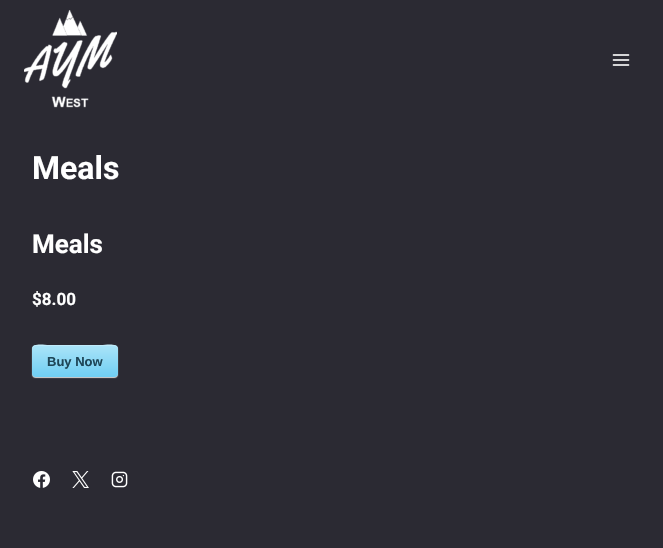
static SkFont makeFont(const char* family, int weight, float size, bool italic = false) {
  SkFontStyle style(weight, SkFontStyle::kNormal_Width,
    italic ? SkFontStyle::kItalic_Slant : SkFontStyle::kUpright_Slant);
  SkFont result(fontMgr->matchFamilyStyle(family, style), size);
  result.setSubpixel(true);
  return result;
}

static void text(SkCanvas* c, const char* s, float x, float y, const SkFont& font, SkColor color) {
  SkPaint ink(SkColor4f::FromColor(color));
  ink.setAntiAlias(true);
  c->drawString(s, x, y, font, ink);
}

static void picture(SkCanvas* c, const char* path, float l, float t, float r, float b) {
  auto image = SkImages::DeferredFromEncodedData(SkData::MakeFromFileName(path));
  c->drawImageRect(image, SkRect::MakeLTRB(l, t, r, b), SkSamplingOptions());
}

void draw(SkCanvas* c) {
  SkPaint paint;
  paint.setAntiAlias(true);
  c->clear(0xff2b2a33);
  picture(c, "img_01.png", 24, 10, 117, 108);
  picture(c, "img_02.png", 612, 54, 630, 66);
  SkFont face1 = makeFont("Roboto", 700, 32);
  text(c, "Meals", 32, 179, face1, 0xffffffff);
  SkFont face2 = makeFont("Roboto", 700, 26);
  text(c, "Meals", 32, 253, face2, 0xffffffff);
  SkFont face3 = makeFont("Roboto", 700, 17);
  text(c, "$8.00", 32, 305, face3, 0xffffffff);
  paint.setColor(0xffd6d6d6);
  paint.setMaskFilter(SkMaskFilter::MakeBlur(kNormal_SkBlurStyle, 0.5f));
  c->drawRoundRect(SkRect::MakeLTRB(32, 346, 118, 378), 4, 4, paint);
  paint.setMaskFilter(nullptr);
  {
    const SkColor colors[] = {0xffabe4f8, 0xff6fcef3};
    const float stops[] = {0, 1};
    const SkPoint ends[] = {{32, 345}, {32, 377}};
    paint.setShader(SkGradientShader::MakeLinear(ends, colors, stops, 2, SkTileMode::kClamp));
    paint.setAlpha(255);
  }
  c->drawRoundRect(SkRect::MakeLTRB(32, 345, 118, 377), 4, 4, paint);
  paint.setShader(nullptr);
  paint.setColor(0xffc0ebfa);
  c->drawPath(SkPathBuilder().moveTo(36, 346).lineTo(114, 346).cubicTo(116, 346, 118, 348, 118, 350).cubicTo(118, 342, 106, 345, 101, 345).lineTo(49, 345).cubicTo(44, 345, 32, 342, 32, 350).cubicTo(32, 348, 34, 346, 36, 346).close().detach(), paint);
  SkFont face4 = makeFont("Liberation Sans", 700, 13);
  text(c, "Buy Now", 47, 366, face4, 0xff1e4657);
  picture(c, "img_03.png", 33, 471, 50, 488);
  picture(c, "img_04.png", 72, 471, 89, 488);
  picture(c, "img_05.png", 111, 471, 128, 488);
}
